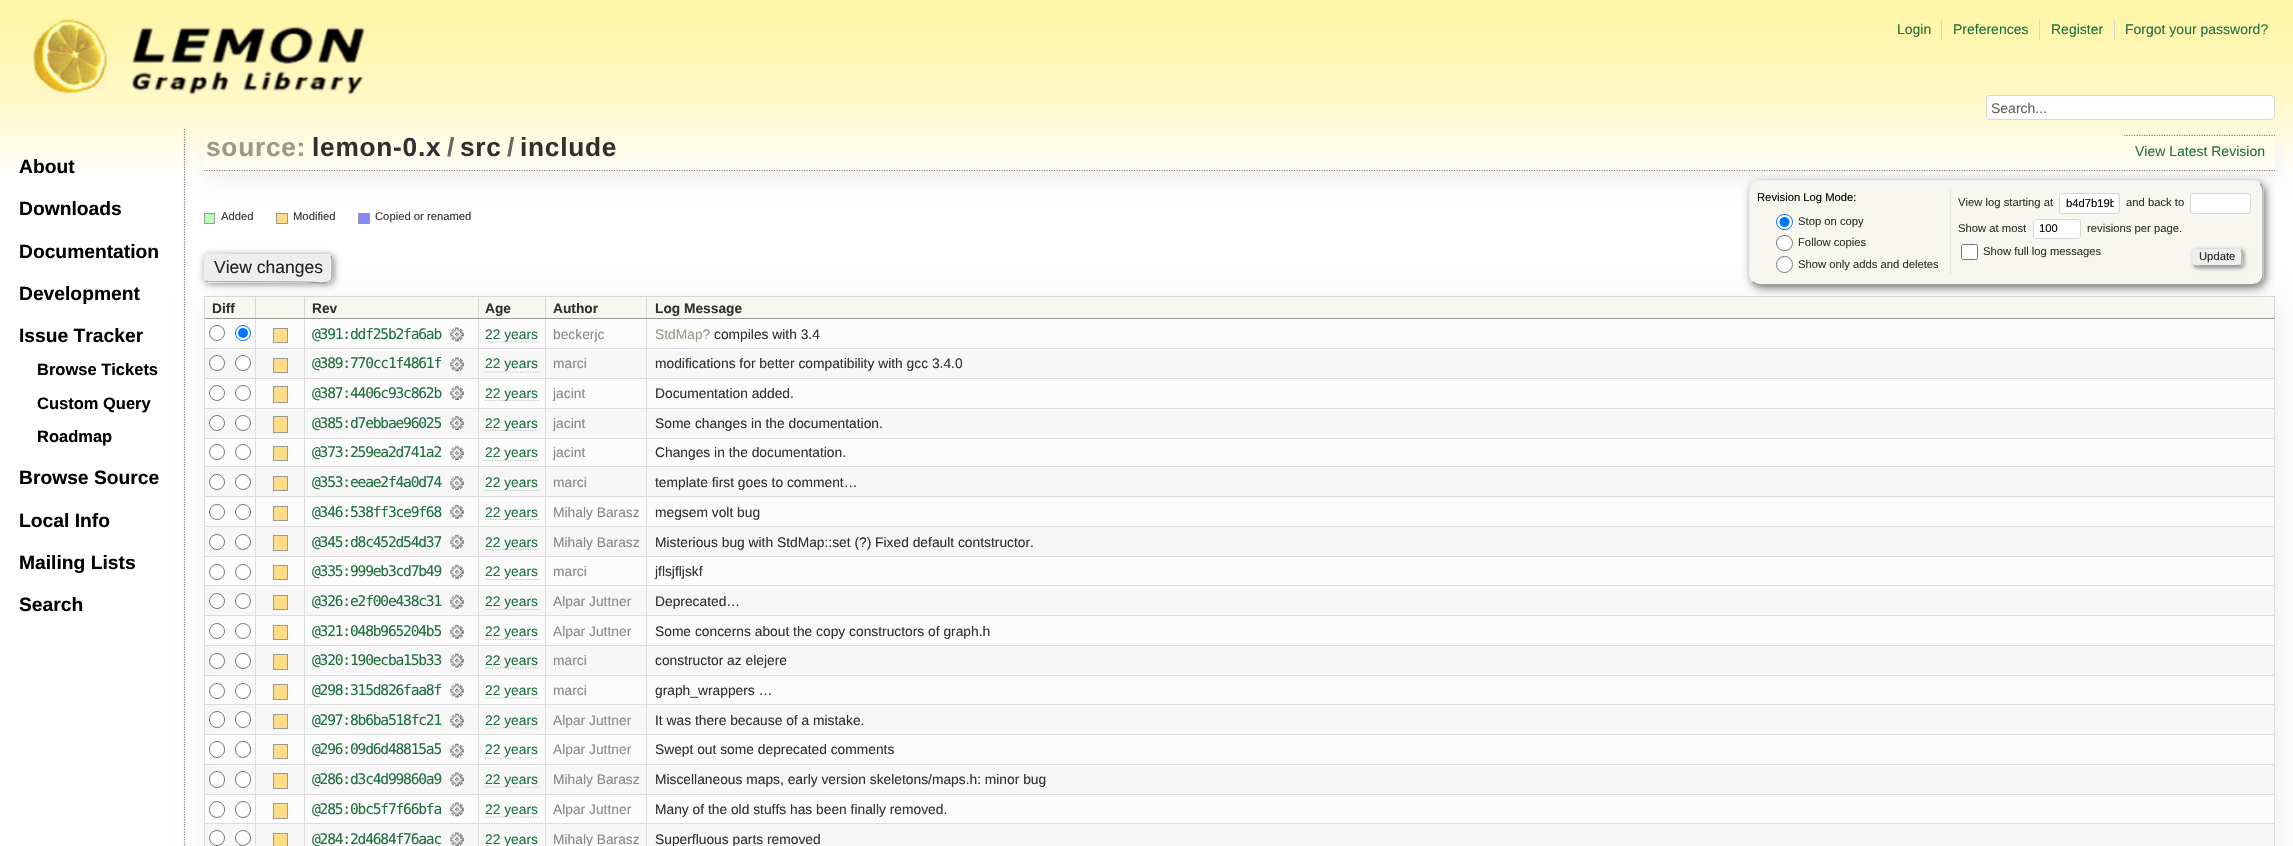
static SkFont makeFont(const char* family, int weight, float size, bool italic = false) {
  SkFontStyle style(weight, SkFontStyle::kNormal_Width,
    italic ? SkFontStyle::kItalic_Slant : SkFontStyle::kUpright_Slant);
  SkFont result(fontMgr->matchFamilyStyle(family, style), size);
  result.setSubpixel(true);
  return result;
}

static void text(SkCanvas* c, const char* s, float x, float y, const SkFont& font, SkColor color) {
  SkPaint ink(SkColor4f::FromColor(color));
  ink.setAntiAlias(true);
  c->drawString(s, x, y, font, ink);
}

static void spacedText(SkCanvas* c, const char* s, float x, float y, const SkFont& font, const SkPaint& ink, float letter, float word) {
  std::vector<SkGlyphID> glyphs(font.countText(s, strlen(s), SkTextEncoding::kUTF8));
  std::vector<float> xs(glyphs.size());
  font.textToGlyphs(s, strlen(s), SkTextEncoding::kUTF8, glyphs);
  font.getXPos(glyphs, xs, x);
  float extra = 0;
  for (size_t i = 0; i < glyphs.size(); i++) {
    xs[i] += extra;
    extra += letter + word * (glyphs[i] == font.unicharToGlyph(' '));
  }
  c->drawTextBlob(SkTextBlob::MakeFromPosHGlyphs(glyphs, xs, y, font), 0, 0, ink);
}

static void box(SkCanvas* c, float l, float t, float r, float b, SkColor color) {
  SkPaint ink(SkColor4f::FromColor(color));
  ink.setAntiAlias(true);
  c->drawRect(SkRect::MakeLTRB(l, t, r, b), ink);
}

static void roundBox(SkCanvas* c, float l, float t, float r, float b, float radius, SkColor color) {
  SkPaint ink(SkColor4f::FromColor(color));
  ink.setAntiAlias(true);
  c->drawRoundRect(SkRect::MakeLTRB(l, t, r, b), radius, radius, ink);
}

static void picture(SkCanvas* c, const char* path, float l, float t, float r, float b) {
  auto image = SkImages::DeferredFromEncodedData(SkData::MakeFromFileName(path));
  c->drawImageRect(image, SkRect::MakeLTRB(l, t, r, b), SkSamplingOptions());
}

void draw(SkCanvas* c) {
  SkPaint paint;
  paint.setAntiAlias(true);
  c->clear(0xffffffff);
  picture(c, "img_01.png", 0, 0, 2293, 172);
  picture(c, "img_02.png", 32, 19, 107, 94);
  paint.setStyle(SkPaint::kStroke_Style);
  paint.setStrokeWidth(1.2f);
  paint.setColor(0xff808080);
  paint.setPathEffect(SkDashPathEffect::Make({{1.25f, 1.25f}}, 0));
  c->drawPath(SkPathBuilder().moveTo(184.5f, 129).lineTo(184.5f, 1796).detach(), paint);
  paint.setPathEffect(nullptr);
  box(c, 1941, 20, 1942, 40, 0xffd7d7d7);
  SkFont face1 = makeFont("Liberation Sans", 400, 14);
  text(c, "Login", 1897, 34, face1, 0xff207040);
  box(c, 2039, 20, 2040, 40, 0xffd7d7d7);
  text(c, "Preferences", 1953, 34, face1, 0xff207040);
  box(c, 2114, 20, 2115, 40, 0xffd7d7d7);
  text(c, "Register", 2051, 34, face1, 0xff207040);
  text(c, "Forgot your password?", 2125, 34, face1, 0xff207040);
  paint.setStyle(SkPaint::kFill_Style);
  paint.setColor(0xffffffff);
  c->drawRoundRect(SkRect::MakeLTRB(1986.5f, 95.5f, 2274.5f, 119.5f), 3.5f, 3.5f, paint);
  paint.setStyle(SkPaint::kStroke_Style);
  paint.setStrokeWidth(1);
  paint.setColor(0xffd7d7d7);
  c->drawRoundRect(SkRect::MakeLTRB(1986.5f, 95.5f, 2274.5f, 119.5f), 3.5f, 3.5f, paint);
  c->save();
  c->clipPath(SkPathBuilder(SkPathFillType::kEvenOdd).moveTo(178, 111).lineTo(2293, 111).lineTo(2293, 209).lineTo(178, 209).close().moveTo(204, 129).lineTo(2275, 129).lineTo(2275, 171).lineTo(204, 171).close().detach(), true);
  paint.setStyle(SkPaint::kFill_Style);
  paint.setColor(0xfff2f2f2);
  paint.setMaskFilter(SkMaskFilter::MakeBlur(kNormal_SkBlurStyle, 9));
  c->drawRect(SkRect::MakeLTRB(206, 139, 2278, 181), paint);
  paint.setMaskFilter(nullptr);
  c->restore();
  paint.setStyle(SkPaint::kStroke_Style);
  paint.setStrokeWidth(1.2f);
  paint.setColor(0xff808080);
  paint.setPathEffect(SkDashPathEffect::Make({{1.25f, 1.25f}}, 0));
  c->drawPath(SkPathBuilder().moveTo(204, 170.5f).lineTo(2275, 170.5f).detach(), paint);
  paint.setPathEffect(nullptr);
  SkFont face2 = makeFont("Liberation Sans", 700, 26.25f);
  paint.setStyle(SkPaint::kFill_Style);
  paint.setColor(0xff999988);
  spacedText(c, "source:", 206, 156, face2, paint, 0.75f, 0);
  paint.setColor(0xff303030);
  spacedText(c, "lemon-0.x", 312, 156, face2, paint, 0.75f, 0);
  paint.setColor(0xff666666);
  spacedText(c, "/", 447, 156, face2, paint, 0.75f, 0);
  paint.setColor(0xff303030);
  spacedText(c, "src", 460, 156, face2, paint, 0.75f, 0);
  paint.setColor(0xff666666);
  spacedText(c, "/", 507, 156, face2, paint, 0.75f, 0);
  paint.setColor(0xff303030);
  spacedText(c, "include", 520, 156, face2, paint, 0.75f, 0);
  paint.setColor(0xffbbffbb);
  c->drawRect(SkRect::MakeLTRB(204.5f, 213.5f, 214.5f, 223.5f), paint);
  paint.setStyle(SkPaint::kStroke_Style);
  paint.setStrokeWidth(1);
  paint.setColor(0xff999999);
  c->drawRect(SkRect::MakeLTRB(204.5f, 213.5f, 214.5f, 223.5f), paint);
  SkFont face3 = makeFont("Liberation Sans", 400, 11.25f);
  text(c, "Added", 221, 220, face3, 0xff303030);
  paint.setStyle(SkPaint::kFill_Style);
  paint.setColor(0xffffdd88);
  c->drawRect(SkRect::MakeLTRB(276.5f, 213.5f, 287.5f, 223.5f), paint);
  paint.setStyle(SkPaint::kStroke_Style);
  paint.setColor(0xff999999);
  c->drawRect(SkRect::MakeLTRB(276.5f, 213.5f, 287.5f, 223.5f), paint);
  text(c, "Modified", 293, 220, face3, 0xff303030);
  paint.setStyle(SkPaint::kFill_Style);
  paint.setColor(0xff8888ff);
  c->drawRect(SkRect::MakeLTRB(358.5f, 213.5f, 369.5f, 223.5f), paint);
  paint.setStyle(SkPaint::kStroke_Style);
  paint.setColor(0xff999999);
  c->drawRect(SkRect::MakeLTRB(358.5f, 213.5f, 369.5f, 223.5f), paint);
  text(c, "Copied or renamed", 375, 220, face3, 0xff303030);
  paint.setStyle(SkPaint::kFill_Style);
  paint.setColor(0xffeeeeee);
  paint.setMaskFilter(SkMaskFilter::MakeBlur(kNormal_SkBlurStyle, 13));
  c->drawRect(SkRect::MakeLTRB(208, 301, 2279, 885), paint);
  paint.setMaskFilter(nullptr);
  box(c, 205, 298, 2274, 318, 0xfff7f7f0);
  box(c, 646, 296, 2275, 297, 0xffd7d7d7);
  box(c, 204, 348, 2275, 349, 0xffdddddd);
  box(c, 204, 378, 2275, 379, 0xffdddddd);
  box(c, 204, 408, 2275, 409, 0xffdddddd);
  box(c, 204, 438, 2275, 439, 0xffdddddd);
  box(c, 205, 439, 2274, 468, 0xfffcfcfc);
  box(c, 204, 466, 2275, 467, 0xffdddddd);
  box(c, 212, 468, 2274, 498, 0xfff7f7f7);
  box(c, 204, 496, 2275, 497, 0xffdddddd);
  box(c, 204, 526, 2275, 527, 0xffdddddd);
  box(c, 204, 556, 2275, 557, 0xffdddddd);
  box(c, 204, 585, 2275, 586, 0xffdddddd);
  box(c, 204, 615, 2275, 616, 0xffdddddd);
  box(c, 204, 645, 2275, 646, 0xffdddddd);
  box(c, 204, 675, 2275, 676, 0xffdddddd);
  box(c, 204, 704, 2275, 705, 0xffdddddd);
  box(c, 204, 734, 2275, 735, 0xffdddddd);
  box(c, 204, 764, 2275, 765, 0xffdddddd);
  box(c, 204, 794, 2275, 795, 0xffdddddd);
  box(c, 204, 823, 2275, 824, 0xffdddddd);
  box(c, 2274, 318, 2275, 846, 0xffdddddd);
  box(c, 2274, 296, 2275, 319, 0xffd7d7d7);
  paint.setColor(0xff777777);
  paint.setMaskFilter(SkMaskFilter::MakeBlur(kNormal_SkBlurStyle, 4));
  c->drawRoundRect(SkRect::MakeLTRB(1751, 183, 2266, 288), 11, 11, paint);
  paint.setMaskFilter(nullptr);
  roundBox(c, 1749, 180, 2264, 285, 11, 0xfff7f7f0);
  paint.setStyle(SkPaint::kStroke_Style);
  paint.setStrokeWidth(1.2f);
  paint.setColor(0xff9f9f9f);
  c->drawPath(SkPathBuilder().moveTo(2260, 183.5f).cubicTo(2262, 185.5f, 2263, 188.5f, 2263, 191).lineTo(2263, 274).cubicTo(2263, 276.5f, 2262, 279.5f, 2260, 281.5f).cubicTo(2258, 283.5f, 2255.5f, 284.5f, 2252.5f, 284.5f).lineTo(1760, 284.5f).cubicTo(1757, 284.5f, 1754.5f, 283.5f, 1752.5f, 281.5f).detach(), paint);
  paint.setColor(0xffeeeeee);
  c->drawPath(SkPathBuilder().moveTo(1752.5f, 281.5f).cubicTo(1750.5f, 279.5f, 1749.5f, 276.5f, 1749.5f, 274).lineTo(1749.5f, 191).cubicTo(1749.5f, 188.5f, 1750.5f, 185.5f, 1752.5f, 183.5f).cubicTo(1754.5f, 181.5f, 1757, 180.5f, 1760, 180.5f).lineTo(2252.5f, 180.5f).cubicTo(2255.5f, 180.5f, 2258, 181.5f, 2260, 183.5f).detach(), paint);
  paint.setColor(0xffd7d7d7);
  paint.setPathEffect(SkDashPathEffect::Make({{1.25f, 1.25f}}, 0));
  c->drawPath(SkPathBuilder().moveTo(1950.5f, 190).lineTo(1950.5f, 275).detach(), paint);
  paint.setPathEffect(nullptr);
  text(c, "Revision Log Mode:", 1757, 201, face3, 0xff000000);
  paint.setStyle(SkPaint::kFill_Style);
  paint.setColor(0xffffffff);
  c->drawRoundRect(SkRect::MakeLTRB(1776.5f, 214.5f, 1792.5f, 229.5f), 7.5f, 7.5f, paint);
  paint.setStyle(SkPaint::kStroke_Style);
  paint.setStrokeWidth(1);
  paint.setColor(0xff0075ff);
  c->drawRoundRect(SkRect::MakeLTRB(1776.5f, 214.5f, 1792.5f, 229.5f), 7.5f, 7.5f, paint);
  paint.setStyle(SkPaint::kFill_Style);
  c->drawCircle(1784.5f, 222, 5, paint);
  text(c, "Stop on copy", 1798, 225, face3, 0xff303030);
  paint.setColor(0xffffffff);
  c->drawRoundRect(SkRect::MakeLTRB(1776.5f, 235.5f, 1792.5f, 250.5f), 7.5f, 7.5f, paint);
  paint.setStyle(SkPaint::kStroke_Style);
  paint.setColor(0xff767676);
  c->drawRoundRect(SkRect::MakeLTRB(1776.5f, 235.5f, 1792.5f, 250.5f), 7.5f, 7.5f, paint);
  text(c, "Follow copies", 1798, 246, face3, 0xff303030);
  paint.setStyle(SkPaint::kFill_Style);
  paint.setColor(0xffffffff);
  c->drawCircle(1784.5f, 264.5f, 8, paint);
  paint.setStyle(SkPaint::kStroke_Style);
  paint.setColor(0xff767676);
  c->drawCircle(1784.5f, 264.5f, 8, paint);
  text(c, "Show only adds and deletes", 1798, 268, face3, 0xff303030);
  text(c, "View log starting at", 1958, 206, face3, 0xff303030);
  paint.setStyle(SkPaint::kFill_Style);
  paint.setColor(0xffffffff);
  c->drawRoundRect(SkRect::MakeLTRB(2059.5f, 193.5f, 2119.5f, 213.5f), 2.5f, 2.5f, paint);
  paint.setStyle(SkPaint::kStroke_Style);
  paint.setColor(0xffd7d7d7);
  c->drawRoundRect(SkRect::MakeLTRB(2059.5f, 193.5f, 2119.5f, 213.5f), 2.5f, 2.5f, paint);
  c->save();
  c->clipRect(SkRect::MakeLTRB(2066, 196, 2114, 209));
  text(c, "b4d7b19b", 2066, 207, face3, 0xff000000);
  c->restore();
  text(c, "and back to", 2126, 206, face3, 0xff303030);
  paint.setStyle(SkPaint::kFill_Style);
  paint.setColor(0xffffffff);
  c->drawRoundRect(SkRect::MakeLTRB(2190.5f, 193.5f, 2250.5f, 213.5f), 2.5f, 2.5f, paint);
  paint.setStyle(SkPaint::kStroke_Style);
  paint.setColor(0xffd7d7d7);
  c->drawRoundRect(SkRect::MakeLTRB(2190.5f, 193.5f, 2250.5f, 213.5f), 2.5f, 2.5f, paint);
  text(c, "Show at most", 1958, 232, face3, 0xff303030);
  paint.setStyle(SkPaint::kFill_Style);
  paint.setColor(0xffffffff);
  c->drawRoundRect(SkRect::MakeLTRB(2033.5f, 219.5f, 2080.5f, 238.5f), 2.5f, 2.5f, paint);
  paint.setStyle(SkPaint::kStroke_Style);
  paint.setColor(0xffd7d7d7);
  c->drawRoundRect(SkRect::MakeLTRB(2033.5f, 219.5f, 2080.5f, 238.5f), 2.5f, 2.5f, paint);
  text(c, "100", 2039, 232, face3, 0xff000000);
  text(c, "revisions per page.", 2087, 232, face3, 0xff303030);
  paint.setStyle(SkPaint::kFill_Style);
  paint.setColor(0xffffffff);
  c->drawRoundRect(SkRect::MakeLTRB(1961.5f, 244.5f, 1977.5f, 259.5f), 2, 2, paint);
  paint.setStyle(SkPaint::kStroke_Style);
  paint.setColor(0xff767676);
  c->drawRoundRect(SkRect::MakeLTRB(1961.5f, 244.5f, 1977.5f, 259.5f), 2, 2, paint);
  text(c, "Show full log messages", 1983, 255, face3, 0xff303030);
  paint.setStyle(SkPaint::kFill_Style);
  paint.setColor(0xff888888);
  paint.setMaskFilter(SkMaskFilter::MakeBlur(kNormal_SkBlurStyle, 2));
  c->drawRoundRect(SkRect::MakeLTRB(2194, 250, 2244, 268), 3, 3, paint);
  paint.setMaskFilter(nullptr);
  roundBox(c, 2193, 249, 2243, 266, 3, 0xffeeeeee);
  paint.setStyle(SkPaint::kStroke_Style);
  paint.setStrokeWidth(1.2f);
  paint.setColor(0xff9f9f9f);
  c->drawPath(SkPathBuilder().moveTo(2241, 250).cubicTo(2243, 252, 2242, 255.5f, 2242, 257.5f).cubicTo(2242, 267, 2242, 265.5f, 2232, 265.5f).lineTo(2203, 265.5f).cubicTo(2202.5f, 265.5f, 2196, 267, 2194, 265).detach(), paint);
  paint.setColor(0xffeeeeee);
  c->drawPath(SkPathBuilder().moveTo(2194, 265).cubicTo(2192, 263, 2193, 259.5f, 2193, 257.5f).cubicTo(2193, 248, 2193, 249.5f, 2203, 249.5f).lineTo(2232, 249.5f).cubicTo(2232.5f, 249.5f, 2239, 248, 2241, 250).detach(), paint);
  text(c, "Update", 2199, 260, face3, 0xff222222);
  paint.setStyle(SkPaint::kFill_Style);
  paint.setColor(0xff888888);
  paint.setMaskFilter(SkMaskFilter::MakeBlur(kNormal_SkBlurStyle, 3.5f));
  c->drawRoundRect(SkRect::MakeLTRB(205, 255, 334, 284), 5, 5, paint);
  paint.setMaskFilter(nullptr);
  roundBox(c, 204, 254, 333, 283, 5, 0xffeeeeee);
  paint.setStyle(SkPaint::kStroke_Style);
  paint.setColor(0xff9f9f9f);
  c->drawPath(SkPathBuilder().moveTo(330.5f, 255.5f).cubicTo(333, 258.5f, 332, 265, 332, 268).lineTo(332, 278).cubicTo(330.5f, 285.5f, 314, 282, 307.5f, 282).lineTo(207, 281.5f).lineTo(205.5f, 280.5f).detach(), paint);
  paint.setColor(0xffeeeeee);
  c->drawPath(SkPathBuilder().moveTo(205.5f, 280.5f).cubicTo(203, 278, 204.5f, 271.5f, 204.5f, 268).lineTo(204.5f, 258).cubicTo(206, 251, 222.5f, 254.5f, 228.5f, 254.5f).lineTo(329, 254.5f).lineTo(330.5f, 255.5f).detach(), paint);
  SkFont face4 = makeFont("Liberation Sans", 400, 17.5f);
  text(c, "View changes", 214, 273, face4, 0xff222222);
  box(c, 205, 319, 2274, 348, 0xfffcfcfc);
  box(c, 212, 349, 2274, 378, 0xfff7f7f7);
  box(c, 205, 379, 2274, 408, 0xfffcfcfc);
  box(c, 212, 409, 2274, 438, 0xfff7f7f7);
  box(c, 205, 498, 2274, 526, 0xfffcfcfc);
  box(c, 212, 527, 2274, 556, 0xfff7f7f7);
  box(c, 205, 557, 2274, 585, 0xfffcfcfc);
  box(c, 212, 586, 2274, 615, 0xfff7f7f7);
  box(c, 205, 616, 2274, 645, 0xfffcfcfc);
  box(c, 212, 646, 2274, 675, 0xfff7f7f7);
  box(c, 205, 676, 2274, 704, 0xfffcfcfc);
  box(c, 212, 705, 2274, 734, 0xfff7f7f7);
  box(c, 205, 735, 2274, 764, 0xfffcfcfc);
  box(c, 212, 765, 2274, 794, 0xfff7f7f7);
  box(c, 205, 795, 2274, 823, 0xfffcfcfc);
  box(c, 212, 824, 2274, 846, 0xfff7f7f7);
  box(c, 646, 318, 647, 846, 0xffdddddd);
  box(c, 646, 318, 2275, 319, 0xff999999);
  box(c, 646, 296, 647, 319, 0xffd7d7d7);
  box(c, 545, 296, 648, 297, 0xffd7d7d7);
  box(c, 545, 318, 546, 846, 0xffdddddd);
  box(c, 545, 318, 648, 319, 0xff999999);
  box(c, 545, 296, 546, 319, 0xffd7d7d7);
  box(c, 478, 296, 546, 297, 0xffd7d7d7);
  box(c, 478, 318, 479, 846, 0xffdddddd);
  box(c, 478, 318, 546, 319, 0xff999999);
  box(c, 478, 296, 479, 319, 0xffd7d7d7);
  box(c, 304, 296, 479, 297, 0xffd7d7d7);
  box(c, 304, 318, 305, 846, 0xffdddddd);
  box(c, 304, 318, 479, 319, 0xff999999);
  box(c, 304, 296, 305, 319, 0xffd7d7d7);
  box(c, 255, 296, 305, 297, 0xffd7d7d7);
  box(c, 255, 318, 256, 846, 0xffdddddd);
  box(c, 255, 318, 305, 319, 0xff999999);
  box(c, 255, 296, 256, 319, 0xffd7d7d7);
  box(c, 204, 296, 256, 297, 0xffd7d7d7);
  box(c, 204, 318, 205, 846, 0xffdddddd);
  box(c, 204, 318, 256, 319, 0xff999999);
  box(c, 204, 296, 205, 319, 0xffd7d7d7);
  SkFont face5 = makeFont("Liberation Sans", 700, 13.75f);
  text(c, "Diff", 212, 313, face5, 0xff303030);
  text(c, "Rev", 312, 313, face5, 0xff303030);
  text(c, "Age", 485, 313, face5, 0xff303030);
  text(c, "Author", 553, 313, face5, 0xff303030);
  text(c, "Log Message", 655, 313, face5, 0xff303030);
  paint.setStyle(SkPaint::kFill_Style);
  paint.setColor(0xffffffff);
  c->drawCircle(217, 333, 7.5f, paint);
  paint.setStyle(SkPaint::kStroke_Style);
  paint.setStrokeWidth(1);
  paint.setColor(0xff767676);
  c->drawCircle(217, 333, 7.5f, paint);
  paint.setStyle(SkPaint::kFill_Style);
  paint.setColor(0xffffffff);
  c->drawCircle(243, 333, 7.5f, paint);
  paint.setStyle(SkPaint::kStroke_Style);
  paint.setColor(0xff0075ff);
  c->drawCircle(243, 333, 7.5f, paint);
  paint.setStyle(SkPaint::kFill_Style);
  c->drawCircle(243, 333, 5, paint);
  paint.setColor(0xffffdd88);
  c->drawRect(SkRect::MakeLTRB(273.5f, 328.5f, 287.5f, 342.5f), paint);
  paint.setStyle(SkPaint::kStroke_Style);
  paint.setColor(0xff999999);
  c->drawRect(SkRect::MakeLTRB(273.5f, 328.5f, 287.5f, 342.5f), paint);
  SkFont face6 = makeFont("DejaVu Sans Mono", 400, 14.6f);
  paint.setStyle(SkPaint::kFill_Style);
  paint.setColor(0xff207040);
  spacedText(c, "@391:ddf25b2fa6ab", 312, 339, face6, paint, -1.2f, 0);
  picture(c, "img_03.png", 450, 327, 464, 342);
  paint.setStyle(SkPaint::kStroke_Style);
  paint.setStrokeWidth(1.2f);
  paint.setColor(0xffc0c0c0);
  paint.setPathEffect(SkDashPathEffect::Make({{1.25f, 1.25f}}, 0));
  c->drawPath(SkPathBuilder().moveTo(485, 342).lineTo(539, 342).detach(), paint);
  paint.setPathEffect(nullptr);
  SkFont face7 = makeFont("Liberation Sans", 400, 13.8f);
  text(c, "22 years", 485, 339, face7, 0xff207040);
  text(c, "beckerjc", 553, 339, face7, 0xff888888);
  text(c, "StdMap?", 655, 339, face7, 0xff999988);
  text(c, "compiles with 3.4", 714, 339, face7, 0xff303030);
  paint.setStyle(SkPaint::kFill_Style);
  paint.setColor(0xffffffff);
  c->drawCircle(217, 363, 7.5f, paint);
  paint.setStyle(SkPaint::kStroke_Style);
  paint.setStrokeWidth(1);
  paint.setColor(0xff767676);
  c->drawCircle(217, 363, 7.5f, paint);
  paint.setStyle(SkPaint::kFill_Style);
  paint.setColor(0xffffffff);
  c->drawCircle(243, 363, 7.5f, paint);
  paint.setStyle(SkPaint::kStroke_Style);
  paint.setColor(0xff767676);
  c->drawCircle(243, 363, 7.5f, paint);
  paint.setStyle(SkPaint::kFill_Style);
  paint.setColor(0xffffdd88);
  c->drawRect(SkRect::MakeLTRB(273.5f, 358.5f, 287.5f, 372.5f), paint);
  paint.setStyle(SkPaint::kStroke_Style);
  paint.setColor(0xff999999);
  c->drawRect(SkRect::MakeLTRB(273.5f, 358.5f, 287.5f, 372.5f), paint);
  paint.setStyle(SkPaint::kFill_Style);
  paint.setColor(0xff207040);
  spacedText(c, "@389:770cc1f4861f", 312, 368, face6, paint, -1.2f, 0);
  picture(c, "img_04.png", 450, 357, 464, 372);
  text(c, "22 years", 485, 368, face7, 0xff207040);
  paint.setStyle(SkPaint::kStroke_Style);
  paint.setStrokeWidth(1.2f);
  paint.setColor(0xffc0c0c0);
  paint.setPathEffect(SkDashPathEffect::Make({{1.25f, 1.25f}}, 0));
  c->drawPath(SkPathBuilder().moveTo(485, 372).lineTo(539, 372).detach(), paint);
  paint.setPathEffect(nullptr);
  text(c, "marci", 553, 368, face7, 0xff888888);
  text(c, "modifications for better compatibility with gcc 3.4.0", 655, 368, face7, 0xff303030);
  paint.setStyle(SkPaint::kFill_Style);
  paint.setColor(0xffffffff);
  c->drawCircle(217, 393, 7.5f, paint);
  paint.setStyle(SkPaint::kStroke_Style);
  paint.setStrokeWidth(1);
  paint.setColor(0xff767676);
  c->drawCircle(217, 393, 7.5f, paint);
  paint.setStyle(SkPaint::kFill_Style);
  paint.setColor(0xffffffff);
  c->drawCircle(243, 393, 7.5f, paint);
  paint.setStyle(SkPaint::kStroke_Style);
  paint.setColor(0xff767676);
  c->drawCircle(243, 393, 7.5f, paint);
  paint.setStyle(SkPaint::kFill_Style);
  paint.setColor(0xffffdd88);
  c->drawRect(SkRect::MakeLTRB(273.5f, 386.5f, 287.5f, 402.5f), paint);
  paint.setStyle(SkPaint::kStroke_Style);
  paint.setColor(0xff999999);
  c->drawRect(SkRect::MakeLTRB(273.5f, 386.5f, 287.5f, 402.5f), paint);
  paint.setStyle(SkPaint::kFill_Style);
  paint.setColor(0xff207040);
  spacedText(c, "@387:4406c93c862b", 312, 398, face6, paint, -1.2f, 0);
  picture(c, "img_05.png", 450, 386, 464, 400);
  paint.setStyle(SkPaint::kStroke_Style);
  paint.setStrokeWidth(1.2f);
  paint.setColor(0xffc0c0c0);
  paint.setPathEffect(SkDashPathEffect::Make({{1.25f, 1.25f}}, 0));
  c->drawPath(SkPathBuilder().moveTo(485, 400.5f).lineTo(539, 400.5f).detach(), paint);
  paint.setPathEffect(nullptr);
  text(c, "22 years", 485, 398, face7, 0xff207040);
  text(c, "jacint", 553, 398, face7, 0xff888888);
  text(c, "Documentation added.", 655, 398, face7, 0xff303030);
  paint.setStyle(SkPaint::kFill_Style);
  paint.setColor(0xffffffff);
  c->drawCircle(217, 423, 7.5f, paint);
  paint.setStyle(SkPaint::kStroke_Style);
  paint.setStrokeWidth(1);
  paint.setColor(0xff767676);
  c->drawCircle(217, 423, 7.5f, paint);
  paint.setStyle(SkPaint::kFill_Style);
  paint.setColor(0xffffffff);
  c->drawCircle(243, 423, 7.5f, paint);
  paint.setStyle(SkPaint::kStroke_Style);
  paint.setColor(0xff767676);
  c->drawCircle(243, 423, 7.5f, paint);
  paint.setStyle(SkPaint::kFill_Style);
  paint.setColor(0xffffdd88);
  c->drawRect(SkRect::MakeLTRB(273.5f, 416.5f, 287.5f, 432.5f), paint);
  paint.setStyle(SkPaint::kStroke_Style);
  paint.setColor(0xff999999);
  c->drawRect(SkRect::MakeLTRB(273.5f, 416.5f, 287.5f, 432.5f), paint);
  paint.setStyle(SkPaint::kFill_Style);
  paint.setColor(0xff207040);
  spacedText(c, "@385:d7ebbae96025", 312, 428, face6, paint, -1.2f, 0);
  picture(c, "img_06.png", 450, 416, 464, 430);
  paint.setStyle(SkPaint::kStroke_Style);
  paint.setStrokeWidth(1.2f);
  paint.setColor(0xffc0c0c0);
  paint.setPathEffect(SkDashPathEffect::Make({{1.25f, 1.25f}}, 0));
  c->drawPath(SkPathBuilder().moveTo(485, 430.5f).lineTo(539, 430.5f).detach(), paint);
  paint.setPathEffect(nullptr);
  text(c, "22 years", 485, 428, face7, 0xff207040);
  text(c, "jacint", 553, 428, face7, 0xff888888);
  text(c, "Some changes in the documentation.", 655, 428, face7, 0xff303030);
  paint.setStyle(SkPaint::kFill_Style);
  paint.setColor(0xffffffff);
  c->drawCircle(217, 452, 7.5f, paint);
  paint.setStyle(SkPaint::kStroke_Style);
  paint.setStrokeWidth(1);
  paint.setColor(0xff767676);
  c->drawCircle(217, 452, 7.5f, paint);
  paint.setStyle(SkPaint::kFill_Style);
  paint.setColor(0xffffffff);
  c->drawCircle(243, 452, 7.5f, paint);
  paint.setStyle(SkPaint::kStroke_Style);
  paint.setColor(0xff767676);
  c->drawCircle(243, 452, 7.5f, paint);
  paint.setStyle(SkPaint::kFill_Style);
  paint.setColor(0xffffdd88);
  c->drawRect(SkRect::MakeLTRB(273.5f, 446.5f, 287.5f, 460.5f), paint);
  paint.setStyle(SkPaint::kStroke_Style);
  paint.setColor(0xff999999);
  c->drawRect(SkRect::MakeLTRB(273.5f, 446.5f, 287.5f, 460.5f), paint);
  paint.setStyle(SkPaint::kFill_Style);
  paint.setColor(0xff207040);
  spacedText(c, "@373:259ea2d741a2", 312, 457, face6, paint, -1.2f, 0);
  picture(c, "img_05.png", 450, 446, 464, 460);
  paint.setStyle(SkPaint::kStroke_Style);
  paint.setStrokeWidth(1.2f);
  paint.setColor(0xffc0c0c0);
  paint.setPathEffect(SkDashPathEffect::Make({{1.25f, 1.25f}}, 0));
  c->drawPath(SkPathBuilder().moveTo(485, 460.5f).lineTo(539, 460.5f).detach(), paint);
  paint.setPathEffect(nullptr);
  text(c, "22 years", 485, 457, face7, 0xff207040);
  text(c, "jacint", 553, 457, face7, 0xff888888);
  text(c, "Changes in the documentation.", 655, 457, face7, 0xff303030);
  paint.setStyle(SkPaint::kFill_Style);
  paint.setColor(0xffffffff);
  c->drawCircle(217, 482, 7.5f, paint);
  paint.setStyle(SkPaint::kStroke_Style);
  paint.setStrokeWidth(1);
  paint.setColor(0xff767676);
  c->drawCircle(217, 482, 7.5f, paint);
  paint.setStyle(SkPaint::kFill_Style);
  paint.setColor(0xffffffff);
  c->drawCircle(243, 482, 7.5f, paint);
  paint.setStyle(SkPaint::kStroke_Style);
  paint.setColor(0xff767676);
  c->drawCircle(243, 482, 7.5f, paint);
  paint.setStyle(SkPaint::kFill_Style);
  paint.setColor(0xffffdd88);
  c->drawRect(SkRect::MakeLTRB(273.5f, 476.5f, 287.5f, 490.5f), paint);
  paint.setStyle(SkPaint::kStroke_Style);
  paint.setColor(0xff999999);
  c->drawRect(SkRect::MakeLTRB(273.5f, 476.5f, 287.5f, 490.5f), paint);
  paint.setStyle(SkPaint::kFill_Style);
  paint.setColor(0xff207040);
  spacedText(c, "@353:eeae2f4a0d74", 312, 487, face6, paint, -1.2f, 0);
  picture(c, "img_06.png", 450, 476, 464, 490);
  paint.setStyle(SkPaint::kStroke_Style);
  paint.setStrokeWidth(1.2f);
  paint.setColor(0xffc0c0c0);
  paint.setPathEffect(SkDashPathEffect::Make({{1.25f, 1.25f}}, 0));
  c->drawPath(SkPathBuilder().moveTo(485, 490.5f).lineTo(539, 490.5f).detach(), paint);
  paint.setPathEffect(nullptr);
  text(c, "22 years", 485, 487, face7, 0xff207040);
  text(c, "marci", 553, 487, face7, 0xff888888);
  text(c, "template first goes to comment…", 655, 487, face7, 0xff303030);
  paint.setStyle(SkPaint::kFill_Style);
  paint.setColor(0xffffffff);
  c->drawCircle(217, 512, 7.5f, paint);
  paint.setStyle(SkPaint::kStroke_Style);
  paint.setStrokeWidth(1);
  paint.setColor(0xff767676);
  c->drawCircle(217, 512, 7.5f, paint);
  paint.setStyle(SkPaint::kFill_Style);
  paint.setColor(0xffffffff);
  c->drawCircle(243, 512, 7.5f, paint);
  paint.setStyle(SkPaint::kStroke_Style);
  paint.setColor(0xff767676);
  c->drawCircle(243, 512, 7.5f, paint);
  paint.setStyle(SkPaint::kFill_Style);
  paint.setColor(0xffffdd88);
  c->drawRect(SkRect::MakeLTRB(273.5f, 506.5f, 287.5f, 520.5f), paint);
  paint.setStyle(SkPaint::kStroke_Style);
  paint.setColor(0xff999999);
  c->drawRect(SkRect::MakeLTRB(273.5f, 506.5f, 287.5f, 520.5f), paint);
  paint.setStyle(SkPaint::kFill_Style);
  paint.setColor(0xff207040);
  spacedText(c, "@346:538ff3ce9f68", 312, 517, face6, paint, -1.2f, 0);
  picture(c, "img_07.png", 450, 504, 464, 519);
  paint.setStyle(SkPaint::kStroke_Style);
  paint.setStrokeWidth(1.2f);
  paint.setColor(0xffc0c0c0);
  paint.setPathEffect(SkDashPathEffect::Make({{1.25f, 1.25f}}, 0));
  c->drawPath(SkPathBuilder().moveTo(485, 519.5f).lineTo(539, 519.5f).detach(), paint);
  paint.setPathEffect(nullptr);
  text(c, "22 years", 485, 517, face7, 0xff207040);
  text(c, "Mihaly Barasz", 553, 517, face7, 0xff888888);
  text(c, "megsem volt bug", 655, 517, face7, 0xff303030);
  paint.setStyle(SkPaint::kFill_Style);
  paint.setColor(0xffffffff);
  c->drawCircle(217, 542, 7.5f, paint);
  paint.setStyle(SkPaint::kStroke_Style);
  paint.setStrokeWidth(1);
  paint.setColor(0xff767676);
  c->drawCircle(217, 542, 7.5f, paint);
  paint.setStyle(SkPaint::kFill_Style);
  paint.setColor(0xffffffff);
  c->drawCircle(243, 542, 7.5f, paint);
  paint.setStyle(SkPaint::kStroke_Style);
  paint.setColor(0xff767676);
  c->drawCircle(243, 542, 7.5f, paint);
  paint.setStyle(SkPaint::kFill_Style);
  paint.setColor(0xffffdd88);
  c->drawRect(SkRect::MakeLTRB(273.5f, 535.5f, 287.5f, 550.5f), paint);
  paint.setStyle(SkPaint::kStroke_Style);
  paint.setColor(0xff999999);
  c->drawRect(SkRect::MakeLTRB(273.5f, 535.5f, 287.5f, 550.5f), paint);
  paint.setStyle(SkPaint::kFill_Style);
  paint.setColor(0xff207040);
  spacedText(c, "@345:d8c452d54d37", 312, 547, face6, paint, -1.2f, 0);
  picture(c, "img_08.png", 450, 534, 464, 549);
  paint.setStyle(SkPaint::kStroke_Style);
  paint.setStrokeWidth(1.2f);
  paint.setColor(0xffc0c0c0);
  paint.setPathEffect(SkDashPathEffect::Make({{1.25f, 1.25f}}, 0));
  c->drawPath(SkPathBuilder().moveTo(485, 549.5f).lineTo(539, 549.5f).detach(), paint);
  paint.setPathEffect(nullptr);
  text(c, "22 years", 485, 547, face7, 0xff207040);
  text(c, "Mihaly Barasz", 553, 547, face7, 0xff888888);
  text(c, "Misterious bug with StdMap::set (?) Fixed default contstructor.", 655, 547, face7, 0xff303030);
  paint.setStyle(SkPaint::kFill_Style);
  paint.setColor(0xffffffff);
  c->drawCircle(217, 572, 7.5f, paint);
  paint.setStyle(SkPaint::kStroke_Style);
  paint.setStrokeWidth(1);
  paint.setColor(0xff767676);
  c->drawCircle(217, 572, 7.5f, paint);
  paint.setStyle(SkPaint::kFill_Style);
  paint.setColor(0xffffffff);
  c->drawCircle(243, 572, 7.5f, paint);
  paint.setStyle(SkPaint::kStroke_Style);
  paint.setColor(0xff767676);
  c->drawCircle(243, 572, 7.5f, paint);
  paint.setStyle(SkPaint::kFill_Style);
  paint.setColor(0xffffdd88);
  c->drawRect(SkRect::MakeLTRB(273.5f, 565.5f, 287.5f, 579.5f), paint);
  paint.setStyle(SkPaint::kStroke_Style);
  paint.setColor(0xff999999);
  c->drawRect(SkRect::MakeLTRB(273.5f, 565.5f, 287.5f, 579.5f), paint);
  paint.setStyle(SkPaint::kFill_Style);
  paint.setColor(0xff207040);
  spacedText(c, "@335:999eb3cd7b49", 312, 576, face6, paint, -1.2f, 0);
  picture(c, "img_07.png", 450, 564, 464, 579);
  paint.setStyle(SkPaint::kStroke_Style);
  paint.setStrokeWidth(1.2f);
  paint.setColor(0xffc0c0c0);
  paint.setPathEffect(SkDashPathEffect::Make({{1.25f, 1.25f}}, 0));
  c->drawPath(SkPathBuilder().moveTo(485, 579.5f).lineTo(539, 579.5f).detach(), paint);
  paint.setPathEffect(nullptr);
  text(c, "22 years", 485, 576, face7, 0xff207040);
  text(c, "marci", 553, 576, face7, 0xff888888);
  text(c, "jflsjfljskf", 655, 576, face7, 0xff303030);
  paint.setStyle(SkPaint::kFill_Style);
  paint.setColor(0xffffffff);
  c->drawCircle(217, 601, 7.5f, paint);
  paint.setStyle(SkPaint::kStroke_Style);
  paint.setStrokeWidth(1);
  paint.setColor(0xff767676);
  c->drawCircle(217, 601, 7.5f, paint);
  paint.setStyle(SkPaint::kFill_Style);
  paint.setColor(0xffffffff);
  c->drawCircle(243, 601, 7.5f, paint);
  paint.setStyle(SkPaint::kStroke_Style);
  paint.setColor(0xff767676);
  c->drawCircle(243, 601, 7.5f, paint);
  paint.setStyle(SkPaint::kFill_Style);
  paint.setColor(0xffffdd88);
  c->drawRect(SkRect::MakeLTRB(273.5f, 595.5f, 287.5f, 609.5f), paint);
  paint.setStyle(SkPaint::kStroke_Style);
  paint.setColor(0xff999999);
  c->drawRect(SkRect::MakeLTRB(273.5f, 595.5f, 287.5f, 609.5f), paint);
  paint.setStyle(SkPaint::kFill_Style);
  paint.setColor(0xff207040);
  spacedText(c, "@326:e2f00e438c31", 312, 606, face6, paint, -1.2f, 0);
  picture(c, "img_08.png", 450, 594, 464, 609);
  paint.setStyle(SkPaint::kStroke_Style);
  paint.setStrokeWidth(1.2f);
  paint.setColor(0xffc0c0c0);
  paint.setPathEffect(SkDashPathEffect::Make({{1.25f, 1.25f}}, 0));
  c->drawPath(SkPathBuilder().moveTo(485, 609.5f).lineTo(539, 609.5f).detach(), paint);
  paint.setPathEffect(nullptr);
  text(c, "22 years", 485, 606, face7, 0xff207040);
  text(c, "Alpar Juttner", 553, 606, face7, 0xff888888);
  text(c, "Deprecated…", 655, 606, face7, 0xff303030);
  paint.setStyle(SkPaint::kFill_Style);
  paint.setColor(0xffffffff);
  c->drawCircle(217, 631, 7.5f, paint);
  paint.setStyle(SkPaint::kStroke_Style);
  paint.setStrokeWidth(1);
  paint.setColor(0xff767676);
  c->drawCircle(217, 631, 7.5f, paint);
  paint.setStyle(SkPaint::kFill_Style);
  paint.setColor(0xffffffff);
  c->drawCircle(243, 631, 7.5f, paint);
  paint.setStyle(SkPaint::kStroke_Style);
  paint.setColor(0xff767676);
  c->drawCircle(243, 631, 7.5f, paint);
  paint.setStyle(SkPaint::kFill_Style);
  paint.setColor(0xffffdd88);
  c->drawRect(SkRect::MakeLTRB(273.5f, 625.5f, 287.5f, 639.5f), paint);
  paint.setStyle(SkPaint::kStroke_Style);
  paint.setColor(0xff999999);
  c->drawRect(SkRect::MakeLTRB(273.5f, 625.5f, 287.5f, 639.5f), paint);
  paint.setStyle(SkPaint::kFill_Style);
  paint.setColor(0xff207040);
  spacedText(c, "@321:048b965204b5", 312, 636, face6, paint, -1.2f, 0);
  picture(c, "img_07.png", 450, 624, 464, 639);
  paint.setStyle(SkPaint::kStroke_Style);
  paint.setStrokeWidth(1.2f);
  paint.setColor(0xffc0c0c0);
  paint.setPathEffect(SkDashPathEffect::Make({{1.25f, 1.25f}}, 0));
  c->drawPath(SkPathBuilder().moveTo(485, 639.5f).lineTo(539, 639.5f).detach(), paint);
  paint.setPathEffect(nullptr);
  text(c, "22 years", 485, 636, face7, 0xff207040);
  text(c, "Alpar Juttner", 553, 636, face7, 0xff888888);
  text(c, "Some concerns about the copy constructors of graph.h", 655, 636, face7, 0xff303030);
  paint.setStyle(SkPaint::kFill_Style);
  paint.setColor(0xffffffff);
  c->drawCircle(217, 661, 7.5f, paint);
  paint.setStyle(SkPaint::kStroke_Style);
  paint.setStrokeWidth(1);
  paint.setColor(0xff767676);
  c->drawCircle(217, 661, 7.5f, paint);
  paint.setStyle(SkPaint::kFill_Style);
  paint.setColor(0xffffffff);
  c->drawCircle(243, 661, 7.5f, paint);
  paint.setStyle(SkPaint::kStroke_Style);
  paint.setColor(0xff767676);
  c->drawCircle(243, 661, 7.5f, paint);
  paint.setStyle(SkPaint::kFill_Style);
  paint.setColor(0xffffdd88);
  c->drawRect(SkRect::MakeLTRB(273.5f, 654.5f, 287.5f, 669.5f), paint);
  paint.setStyle(SkPaint::kStroke_Style);
  paint.setColor(0xff999999);
  c->drawRect(SkRect::MakeLTRB(273.5f, 654.5f, 287.5f, 669.5f), paint);
  paint.setStyle(SkPaint::kFill_Style);
  paint.setColor(0xff207040);
  spacedText(c, "@320:190ecba15b33", 312, 665, face6, paint, -1.2f, 0);
  picture(c, "img_09.png", 450, 653, 464, 668);
  paint.setStyle(SkPaint::kStroke_Style);
  paint.setStrokeWidth(1.2f);
  paint.setColor(0xffc0c0c0);
  paint.setPathEffect(SkDashPathEffect::Make({{1.25f, 1.25f}}, 0));
  c->drawPath(SkPathBuilder().moveTo(485, 668).lineTo(539, 668).detach(), paint);
  paint.setPathEffect(nullptr);
  text(c, "22 years", 485, 665, face7, 0xff207040);
  text(c, "marci", 553, 665, face7, 0xff888888);
  text(c, "constructor az elejere", 655, 665, face7, 0xff303030);
  paint.setStyle(SkPaint::kFill_Style);
  paint.setColor(0xffffffff);
  c->drawCircle(217, 691, 7.5f, paint);
  paint.setStyle(SkPaint::kStroke_Style);
  paint.setStrokeWidth(1);
  paint.setColor(0xff767676);
  c->drawCircle(217, 691, 7.5f, paint);
  paint.setStyle(SkPaint::kFill_Style);
  paint.setColor(0xffffffff);
  c->drawCircle(243, 691, 7.5f, paint);
  paint.setStyle(SkPaint::kStroke_Style);
  paint.setColor(0xff767676);
  c->drawCircle(243, 691, 7.5f, paint);
  paint.setStyle(SkPaint::kFill_Style);
  paint.setColor(0xffffdd88);
  c->drawRect(SkRect::MakeLTRB(273.5f, 684.5f, 287.5f, 699.5f), paint);
  paint.setStyle(SkPaint::kStroke_Style);
  paint.setColor(0xff999999);
  c->drawRect(SkRect::MakeLTRB(273.5f, 684.5f, 287.5f, 699.5f), paint);
  paint.setStyle(SkPaint::kFill_Style);
  paint.setColor(0xff207040);
  spacedText(c, "@298:315d826faa8f", 312, 695, face6, paint, -1.2f, 0);
  picture(c, "img_10.png", 450, 683, 464, 698);
  paint.setStyle(SkPaint::kStroke_Style);
  paint.setStrokeWidth(1.2f);
  paint.setColor(0xffc0c0c0);
  paint.setPathEffect(SkDashPathEffect::Make({{1.25f, 1.25f}}, 0));
  c->drawPath(SkPathBuilder().moveTo(485, 698).lineTo(539, 698).detach(), paint);
  paint.setPathEffect(nullptr);
  text(c, "22 years", 485, 695, face7, 0xff207040);
  text(c, "marci", 553, 695, face7, 0xff888888);
  text(c, "graph_wrappers …", 655, 695, face7, 0xff303030);
  paint.setStyle(SkPaint::kFill_Style);
  paint.setColor(0xffffffff);
  c->drawRoundRect(SkRect::MakeLTRB(209.5f, 711.5f, 224.5f, 727.5f), 7.5f, 7.5f, paint);
  paint.setStyle(SkPaint::kStroke_Style);
  paint.setStrokeWidth(1);
  paint.setColor(0xff767676);
  c->drawRoundRect(SkRect::MakeLTRB(209.5f, 711.5f, 224.5f, 727.5f), 7.5f, 7.5f, paint);
  paint.setStyle(SkPaint::kFill_Style);
  paint.setColor(0xffffffff);
  c->drawRoundRect(SkRect::MakeLTRB(235.5f, 711.5f, 250.5f, 727.5f), 7.5f, 7.5f, paint);
  paint.setStyle(SkPaint::kStroke_Style);
  paint.setColor(0xff767676);
  c->drawRoundRect(SkRect::MakeLTRB(235.5f, 711.5f, 250.5f, 727.5f), 7.5f, 7.5f, paint);
  paint.setStyle(SkPaint::kFill_Style);
  paint.setColor(0xffffdd88);
  c->drawRect(SkRect::MakeLTRB(273.5f, 714.5f, 287.5f, 728.5f), paint);
  paint.setStyle(SkPaint::kStroke_Style);
  paint.setColor(0xff999999);
  c->drawRect(SkRect::MakeLTRB(273.5f, 714.5f, 287.5f, 728.5f), paint);
  paint.setStyle(SkPaint::kFill_Style);
  paint.setColor(0xff207040);
  spacedText(c, "@297:8b6ba518fc21", 312, 725, face6, paint, -1.2f, 0);
  picture(c, "img_09.png", 450, 713, 464, 728);
  paint.setStyle(SkPaint::kStroke_Style);
  paint.setStrokeWidth(1.2f);
  paint.setColor(0xffc0c0c0);
  paint.setPathEffect(SkDashPathEffect::Make({{1.25f, 1.25f}}, 0));
  c->drawPath(SkPathBuilder().moveTo(485, 728).lineTo(539, 728).detach(), paint);
  paint.setPathEffect(nullptr);
  text(c, "22 years", 485, 725, face7, 0xff207040);
  text(c, "Alpar Juttner", 553, 725, face7, 0xff888888);
  text(c, "It was there because of a mistake.", 655, 725, face7, 0xff303030);
  paint.setStyle(SkPaint::kFill_Style);
  paint.setColor(0xffffffff);
  c->drawRoundRect(SkRect::MakeLTRB(209.5f, 741.5f, 224.5f, 757.5f), 7.5f, 7.5f, paint);
  paint.setStyle(SkPaint::kStroke_Style);
  paint.setStrokeWidth(1);
  paint.setColor(0xff767676);
  c->drawRoundRect(SkRect::MakeLTRB(209.5f, 741.5f, 224.5f, 757.5f), 7.5f, 7.5f, paint);
  paint.setStyle(SkPaint::kFill_Style);
  paint.setColor(0xffffffff);
  c->drawRoundRect(SkRect::MakeLTRB(235.5f, 741.5f, 250.5f, 757.5f), 7.5f, 7.5f, paint);
  paint.setStyle(SkPaint::kStroke_Style);
  paint.setColor(0xff767676);
  c->drawRoundRect(SkRect::MakeLTRB(235.5f, 741.5f, 250.5f, 757.5f), 7.5f, 7.5f, paint);
  paint.setStyle(SkPaint::kFill_Style);
  paint.setColor(0xffffdd88);
  c->drawRect(SkRect::MakeLTRB(273.5f, 744.5f, 287.5f, 758.5f), paint);
  paint.setStyle(SkPaint::kStroke_Style);
  paint.setColor(0xff999999);
  c->drawRect(SkRect::MakeLTRB(273.5f, 744.5f, 287.5f, 758.5f), paint);
  paint.setStyle(SkPaint::kFill_Style);
  paint.setColor(0xff207040);
  spacedText(c, "@296:09d6d48815a5", 312, 754, face6, paint, -1.2f, 0);
  picture(c, "img_10.png", 450, 743, 464, 758);
  text(c, "22 years", 485, 754, face7, 0xff207040);
  paint.setStyle(SkPaint::kStroke_Style);
  paint.setStrokeWidth(1.2f);
  paint.setColor(0xffc0c0c0);
  paint.setPathEffect(SkDashPathEffect::Make({{1.25f, 1.25f}}, 0));
  c->drawPath(SkPathBuilder().moveTo(485, 758).lineTo(539, 758).detach(), paint);
  paint.setPathEffect(nullptr);
  text(c, "Alpar Juttner", 553, 754, face7, 0xff888888);
  text(c, "Swept out some deprecated comments", 655, 754, face7, 0xff303030);
  paint.setStyle(SkPaint::kFill_Style);
  paint.setColor(0xffffffff);
  c->drawRoundRect(SkRect::MakeLTRB(209.5f, 771.5f, 224.5f, 787.5f), 7.5f, 7.5f, paint);
  paint.setStyle(SkPaint::kStroke_Style);
  paint.setStrokeWidth(1);
  paint.setColor(0xff767676);
  c->drawRoundRect(SkRect::MakeLTRB(209.5f, 771.5f, 224.5f, 787.5f), 7.5f, 7.5f, paint);
  paint.setStyle(SkPaint::kFill_Style);
  paint.setColor(0xffffffff);
  c->drawRoundRect(SkRect::MakeLTRB(235.5f, 771.5f, 250.5f, 787.5f), 7.5f, 7.5f, paint);
  paint.setStyle(SkPaint::kStroke_Style);
  paint.setColor(0xff767676);
  c->drawRoundRect(SkRect::MakeLTRB(235.5f, 771.5f, 250.5f, 787.5f), 7.5f, 7.5f, paint);
  paint.setStyle(SkPaint::kFill_Style);
  paint.setColor(0xffffdd88);
  c->drawRect(SkRect::MakeLTRB(273.5f, 773.5f, 287.5f, 788.5f), paint);
  paint.setStyle(SkPaint::kStroke_Style);
  paint.setColor(0xff999999);
  c->drawRect(SkRect::MakeLTRB(273.5f, 773.5f, 287.5f, 788.5f), paint);
  paint.setStyle(SkPaint::kFill_Style);
  paint.setColor(0xff207040);
  spacedText(c, "@286:d3c4d99860a9", 312, 784, face6, paint, -1.2f, 0);
  picture(c, "img_04.png", 450, 772, 464, 787);
  paint.setStyle(SkPaint::kStroke_Style);
  paint.setStrokeWidth(1.2f);
  paint.setColor(0xffc0c0c0);
  paint.setPathEffect(SkDashPathEffect::Make({{1.25f, 1.25f}}, 0));
  c->drawPath(SkPathBuilder().moveTo(485, 787).lineTo(539, 787).detach(), paint);
  paint.setPathEffect(nullptr);
  text(c, "22 years", 485, 784, face7, 0xff207040);
  text(c, "Mihaly Barasz", 553, 784, face7, 0xff888888);
  text(c, "Miscellaneous maps, early version skeletons/maps.h: minor bug", 655, 784, face7, 0xff303030);
  paint.setStyle(SkPaint::kFill_Style);
  paint.setColor(0xffffffff);
  c->drawRoundRect(SkRect::MakeLTRB(209.5f, 801.5f, 224.5f, 817.5f), 7.5f, 7.5f, paint);
  paint.setStyle(SkPaint::kStroke_Style);
  paint.setStrokeWidth(1);
  paint.setColor(0xff767676);
  c->drawRoundRect(SkRect::MakeLTRB(209.5f, 801.5f, 224.5f, 817.5f), 7.5f, 7.5f, paint);
  paint.setStyle(SkPaint::kFill_Style);
  paint.setColor(0xffffffff);
  c->drawRoundRect(SkRect::MakeLTRB(235.5f, 801.5f, 250.5f, 817.5f), 7.5f, 7.5f, paint);
  paint.setStyle(SkPaint::kStroke_Style);
  paint.setColor(0xff767676);
  c->drawRoundRect(SkRect::MakeLTRB(235.5f, 801.5f, 250.5f, 817.5f), 7.5f, 7.5f, paint);
  paint.setStyle(SkPaint::kFill_Style);
  paint.setColor(0xffffdd88);
  c->drawRect(SkRect::MakeLTRB(273.5f, 803.5f, 287.5f, 818.5f), paint);
  paint.setStyle(SkPaint::kStroke_Style);
  paint.setColor(0xff999999);
  c->drawRect(SkRect::MakeLTRB(273.5f, 803.5f, 287.5f, 818.5f), paint);
  paint.setStyle(SkPaint::kFill_Style);
  paint.setColor(0xff207040);
  spacedText(c, "@285:0bc5f7f66bfa", 312, 814, face6, paint, -1.2f, 0);
  picture(c, "img_03.png", 450, 802, 464, 817);
  paint.setStyle(SkPaint::kStroke_Style);
  paint.setStrokeWidth(1.2f);
  paint.setColor(0xffc0c0c0);
  paint.setPathEffect(SkDashPathEffect::Make({{1.25f, 1.25f}}, 0));
  c->drawPath(SkPathBuilder().moveTo(485, 817).lineTo(539, 817).detach(), paint);
  paint.setPathEffect(nullptr);
  text(c, "22 years", 485, 814, face7, 0xff207040);
  text(c, "Alpar Juttner", 553, 814, face7, 0xff888888);
  text(c, "Many of the old stuffs has been finally removed.", 655, 814, face7, 0xff303030);
  paint.setStyle(SkPaint::kFill_Style);
  paint.setColor(0xffffffff);
  c->drawCircle(217, 838, 7.5f, paint);
  paint.setStyle(SkPaint::kStroke_Style);
  paint.setStrokeWidth(1);
  paint.setColor(0xff767676);
  c->drawCircle(217, 838, 7.5f, paint);
  paint.setStyle(SkPaint::kFill_Style);
  paint.setColor(0xffffffff);
  c->drawCircle(243, 838, 7.5f, paint);
  paint.setStyle(SkPaint::kStroke_Style);
  paint.setColor(0xff767676);
  c->drawCircle(243, 838, 7.5f, paint);
  paint.setStyle(SkPaint::kFill_Style);
  paint.setColor(0xffffdd88);
  c->drawRect(SkRect::MakeLTRB(273.5f, 833.5f, 287.5f, 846.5f), paint);
  paint.setStyle(SkPaint::kStroke_Style);
  paint.setColor(0xff999999);
  c->drawRect(SkRect::MakeLTRB(273.5f, 833.5f, 287.5f, 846.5f), paint);
  paint.setStyle(SkPaint::kFill_Style);
  paint.setColor(0xff207040);
  spacedText(c, "@284:2d4684f76aac", 312, 844, face6, paint, -1.2f, 0);
  picture(c, "img_11.png", 450, 832, 464, 846);
  text(c, "22 years", 485, 844, face7, 0xff207040);
  text(c, "Mihaly Barasz", 553, 844, face7, 0xff888888);
  text(c, "Superfluous parts removed", 655, 844, face7, 0xff303030);
  paint.setStyle(SkPaint::kStroke_Style);
  paint.setStrokeWidth(1.2f);
  paint.setColor(0xff808080);
  paint.setPathEffect(SkDashPathEffect::Make({{1.25f, 1.25f}}, 0));
  c->drawPath(SkPathBuilder().moveTo(2124, 135.5f).lineTo(2275, 135.5f).detach(), paint);
  paint.setPathEffect(nullptr);
  text(c, "View Latest Revision", 2135, 156, face1, 0xff207040);
  picture(c, "img_12.png", 131, 26, 365, 95);
  text(c, "Search...", 1991, 113, face1, 0xff606060);
  SkFont face8 = makeFont("Liberation Sans", 700, 19.25f);
  text(c, "About", 19, 173, face8, 0xff000000);
  text(c, "Downloads", 19, 215, face8, 0xff000000);
  text(c, "Documentation", 19, 258, face8, 0xff000000);
  text(c, "Development", 19, 300, face8, 0xff000000);
  text(c, "Issue Tracker", 19, 342, face8, 0xff000000);
  SkFont face9 = makeFont("Liberation Sans", 700, 16.5f);
  text(c, "Browse Tickets", 37, 375, face9, 0xff000000);
  text(c, "Custom Query", 37, 409, face9, 0xff000000);
  text(c, "Roadmap", 37, 442, face9, 0xff000000);
  text(c, "Browse Source", 19, 484, face8, 0xff000000);
  text(c, "Local Info", 19, 527, face8, 0xff000000);
  text(c, "Mailing Lists", 19, 569, face8, 0xff000000);
  text(c, "Search", 19, 611, face8, 0xff000000);
}
